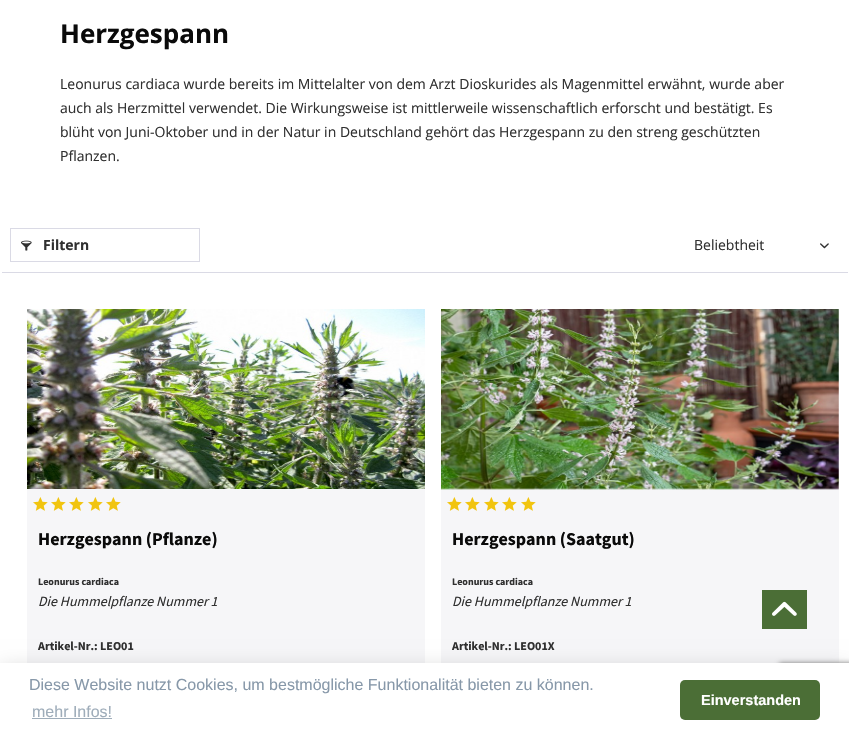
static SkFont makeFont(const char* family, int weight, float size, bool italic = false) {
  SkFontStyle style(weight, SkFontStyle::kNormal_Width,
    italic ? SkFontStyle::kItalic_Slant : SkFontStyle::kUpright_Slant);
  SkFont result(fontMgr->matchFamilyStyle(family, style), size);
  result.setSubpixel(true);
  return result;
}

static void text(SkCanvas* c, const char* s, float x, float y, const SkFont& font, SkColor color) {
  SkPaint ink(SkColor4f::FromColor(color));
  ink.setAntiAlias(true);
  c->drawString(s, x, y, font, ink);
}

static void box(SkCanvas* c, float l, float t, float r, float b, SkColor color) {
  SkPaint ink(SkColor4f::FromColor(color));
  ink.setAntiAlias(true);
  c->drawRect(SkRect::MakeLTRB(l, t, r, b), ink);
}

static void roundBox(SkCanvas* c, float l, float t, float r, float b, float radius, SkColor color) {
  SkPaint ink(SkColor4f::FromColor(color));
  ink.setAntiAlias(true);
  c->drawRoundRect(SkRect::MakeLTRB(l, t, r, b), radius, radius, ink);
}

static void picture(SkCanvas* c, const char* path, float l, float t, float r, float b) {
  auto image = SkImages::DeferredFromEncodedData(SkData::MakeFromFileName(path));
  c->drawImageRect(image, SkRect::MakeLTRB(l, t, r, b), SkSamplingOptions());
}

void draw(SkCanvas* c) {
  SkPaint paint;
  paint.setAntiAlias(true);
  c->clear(0xffffffff);
  SkFont face1 = makeFont("Open Sans", 700, 26);
  text(c, "Herzgespann", 60, 43, face1, 0xff0a0a0a);
  SkFont face2 = makeFont("Open Sans", 400, 14);
  text(c, "Leonurus cardiaca wurde bereits im Mittelalter von dem Arzt Dioskurides als Magenmittel erwähnt, wurde aber", 60, 89, face2, 0xff303030);
  text(c, "auch als Herzmittel verwendet. Die Wirkungsweise ist mittlerweile wissenschaftlich erforscht und bestätigt. Es", 60, 113, face2, 0xff303030);
  text(c, "blüht von Juni-Oktober und in der Natur in Deutschland gehört das Herzgespann zu den streng geschützten", 60, 137, face2, 0xff303030);
  text(c, "Pflanzen.", 60, 161, face2, 0xff303030);
  box(c, 2, 272, 848, 273, 0xffdadae5);
  paint.setStyle(SkPaint::kStroke_Style);
  paint.setStrokeWidth(1);
  paint.setColor(0xffdadae5);
  c->drawRect(SkRect::MakeLTRB(10.5f, 228.5f, 199.5f, 261.5f), paint);
  picture(c, "img_01.png", 21, 240, 32, 251);
  SkFont face3 = makeFont("Open Sans", 700, 14);
  text(c, "Filtern", 43, 250, face3, 0xff303030);
  text(c, "Beliebtheit", 694, 250, face2, 0xff303030);
  picture(c, "img_02.png", 820, 243, 829, 249);
  box(c, 27, 489, 425, 663, 0xfff6f6f8);
  picture(c, "img_03.png", 27, 309, 425, 489);
  picture(c, "img_04.png", 33, 497, 48, 511);
  picture(c, "img_04.png", 51, 497, 66, 511);
  picture(c, "img_04.png", 69, 497, 84, 511);
  picture(c, "img_04.png", 88, 497, 103, 511);
  picture(c, "img_04.png", 106, 497, 121, 511);
  SkFont face4 = makeFont("Source Sans Pro", 700, 18);
  text(c, "Herzgespann (Pflanze)", 38, 545, face4, 0xff0a0a0a);
  SkFont face5 = makeFont("Source Sans Pro", 700, 10);
  text(c, "Leonurus cardiaca", 38, 585, face5, 0xff303030);
  SkFont face6 = makeFont("Source Sans Pro", 400, 14, true);
  text(c, "Die Hummelpflanze Nummer 1", 38, 606, face6, 0xff303030);
  SkFont face7 = makeFont("Source Sans Pro", 700, 12);
  text(c, "Artikel-Nr.: LEO01", 38, 650, face7, 0xff303030);
  box(c, 441, 309, 839, 663, 0xfff6f6f8);
  picture(c, "img_05.png", 441, 309, 839, 490);
  picture(c, "img_04.png", 447, 497, 462, 511);
  picture(c, "img_04.png", 465, 497, 480, 511);
  picture(c, "img_04.png", 484, 497, 499, 511);
  picture(c, "img_04.png", 502, 497, 517, 511);
  picture(c, "img_04.png", 521, 497, 536, 511);
  text(c, "Herzgespann (Saatgut)", 452, 545, face4, 0xff0a0a0a);
  text(c, "Leonurus cardiaca", 452, 585, face5, 0xff303030);
  text(c, "Die Hummelpflanze Nummer 1", 452, 606, face6, 0xff303030);
  text(c, "Artikel-Nr.: LEO01X", 452, 650, face7, 0xff303030);
  box(c, 762, 590, 807, 629, 0xff4b6e36);
  picture(c, "img_06.png", 772, 601, 797, 616);
  paint.setStyle(SkPaint::kFill_Style);
  paint.setColor(0x30000000);
  paint.setMaskFilter(SkMaskFilter::MakeBlur(kNormal_SkBlurStyle, 10));
  c->drawRect(SkRect::MakeLTRB(0, 669, 849, 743), paint);
  paint.setMaskFilter(nullptr);
  paint.setColor(0xff808080);
  paint.setMaskFilter(SkMaskFilter::MakeBlur(kNormal_SkBlurStyle, 2.5f));
  c->drawRoundRect(SkRect::MakeLTRB(779, 663, 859, 723), 2, 2, paint);
  paint.setMaskFilter(nullptr);
  box(c, 0, 663, 849, 737, 0xffffffff);
  SkFont face8 = makeFont("Liberation Sans", 400, 16);
  text(c, "Diese Website nutzt Cookies, um bestmögliche Funktionalität bieten zu können.", 29, 690, face8, 0xff8798a9);
  text(c, "mehr Infos!", 32, 717, face8, 0xff9fadba);
  box(c, 32, 718, 112, 719, 0xff9fadba);
  roundBox(c, 680, 680, 820, 720, 5, 0xff4b6e36);
  SkFont face9 = makeFont("Liberation Sans", 700, 14.5f);
  text(c, "Einverstanden", 701, 705, face9, 0xffffffff);
}
